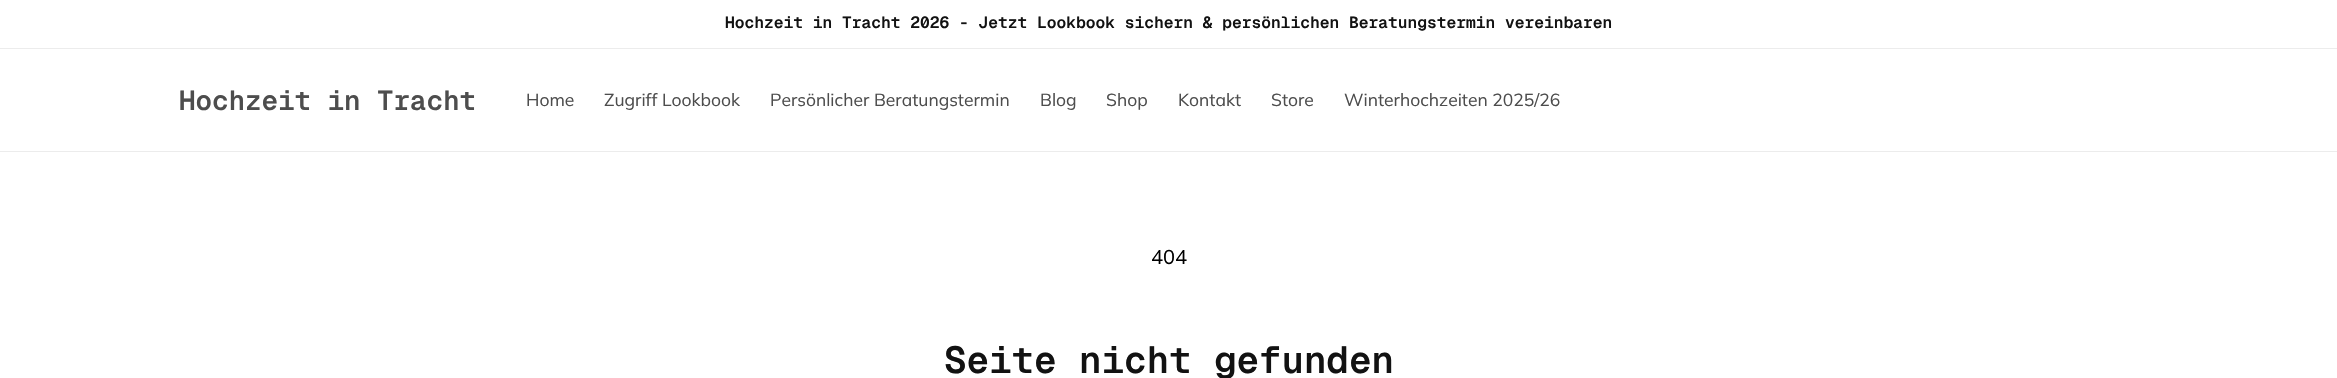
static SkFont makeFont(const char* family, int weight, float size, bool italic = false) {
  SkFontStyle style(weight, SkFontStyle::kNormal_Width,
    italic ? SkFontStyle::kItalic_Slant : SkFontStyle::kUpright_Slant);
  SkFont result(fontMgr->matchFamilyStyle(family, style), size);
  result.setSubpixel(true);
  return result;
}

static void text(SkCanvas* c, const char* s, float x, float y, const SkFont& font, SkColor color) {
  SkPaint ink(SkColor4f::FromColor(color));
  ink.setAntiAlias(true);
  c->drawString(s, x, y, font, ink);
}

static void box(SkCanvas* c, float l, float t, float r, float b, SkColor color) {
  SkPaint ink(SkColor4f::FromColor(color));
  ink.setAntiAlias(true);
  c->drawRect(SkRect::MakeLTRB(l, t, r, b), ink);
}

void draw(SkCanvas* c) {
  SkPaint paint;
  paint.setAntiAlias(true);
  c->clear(0xffffffff);
  box(c, 0, 48, 2337, 49, 0xffececec);
  SkFont face1 = makeFont("Geist Mono", 600, 16.25f);
  text(c, "Hochzeit in Tracht 2026 - Jetzt Lookbook sichern & persönlichen Beratungstermin vereinbaren", 725, 28, face1, 0xff121212);
  box(c, 0, 151, 2337, 152, 0xffececec);
  SkFont face2 = makeFont("Geist Mono", 600, 27.5f);
  text(c, "Hochzeit in Tracht", 179, 110, face2, 0xff4d4d4d);
  SkFont face3 = makeFont("Mulish", 400, 17.5f);
  text(c, "Home", 526, 106, face3, 0xff4d4d4d);
  text(c, "Zugriff Lookbook", 604, 106, face3, 0xff4d4d4d);
  text(c, "Persönlicher Beratungstermin", 770, 106, face3, 0xff4d4d4d);
  text(c, "Blog", 1040, 106, face3, 0xff4d4d4d);
  text(c, "Shop", 1106, 106, face3, 0xff4d4d4d);
  text(c, "Kontakt", 1178, 106, face3, 0xff4d4d4d);
  text(c, "Store", 1271, 106, face3, 0xff4d4d4d);
  text(c, "Winterhochzeiten 2025/26", 1344, 106, face3, 0xff4d4d4d);
  SkFont face4 = makeFont("Mulish", 400, 20);
  text(c, "404", 1151, 264, face4, 0xff000000);
  SkFont face5 = makeFont("Geist Mono", 600, 37.5f);
  text(c, "Seite nicht gefunden", 944, 373, face5, 0xff121212);
}
